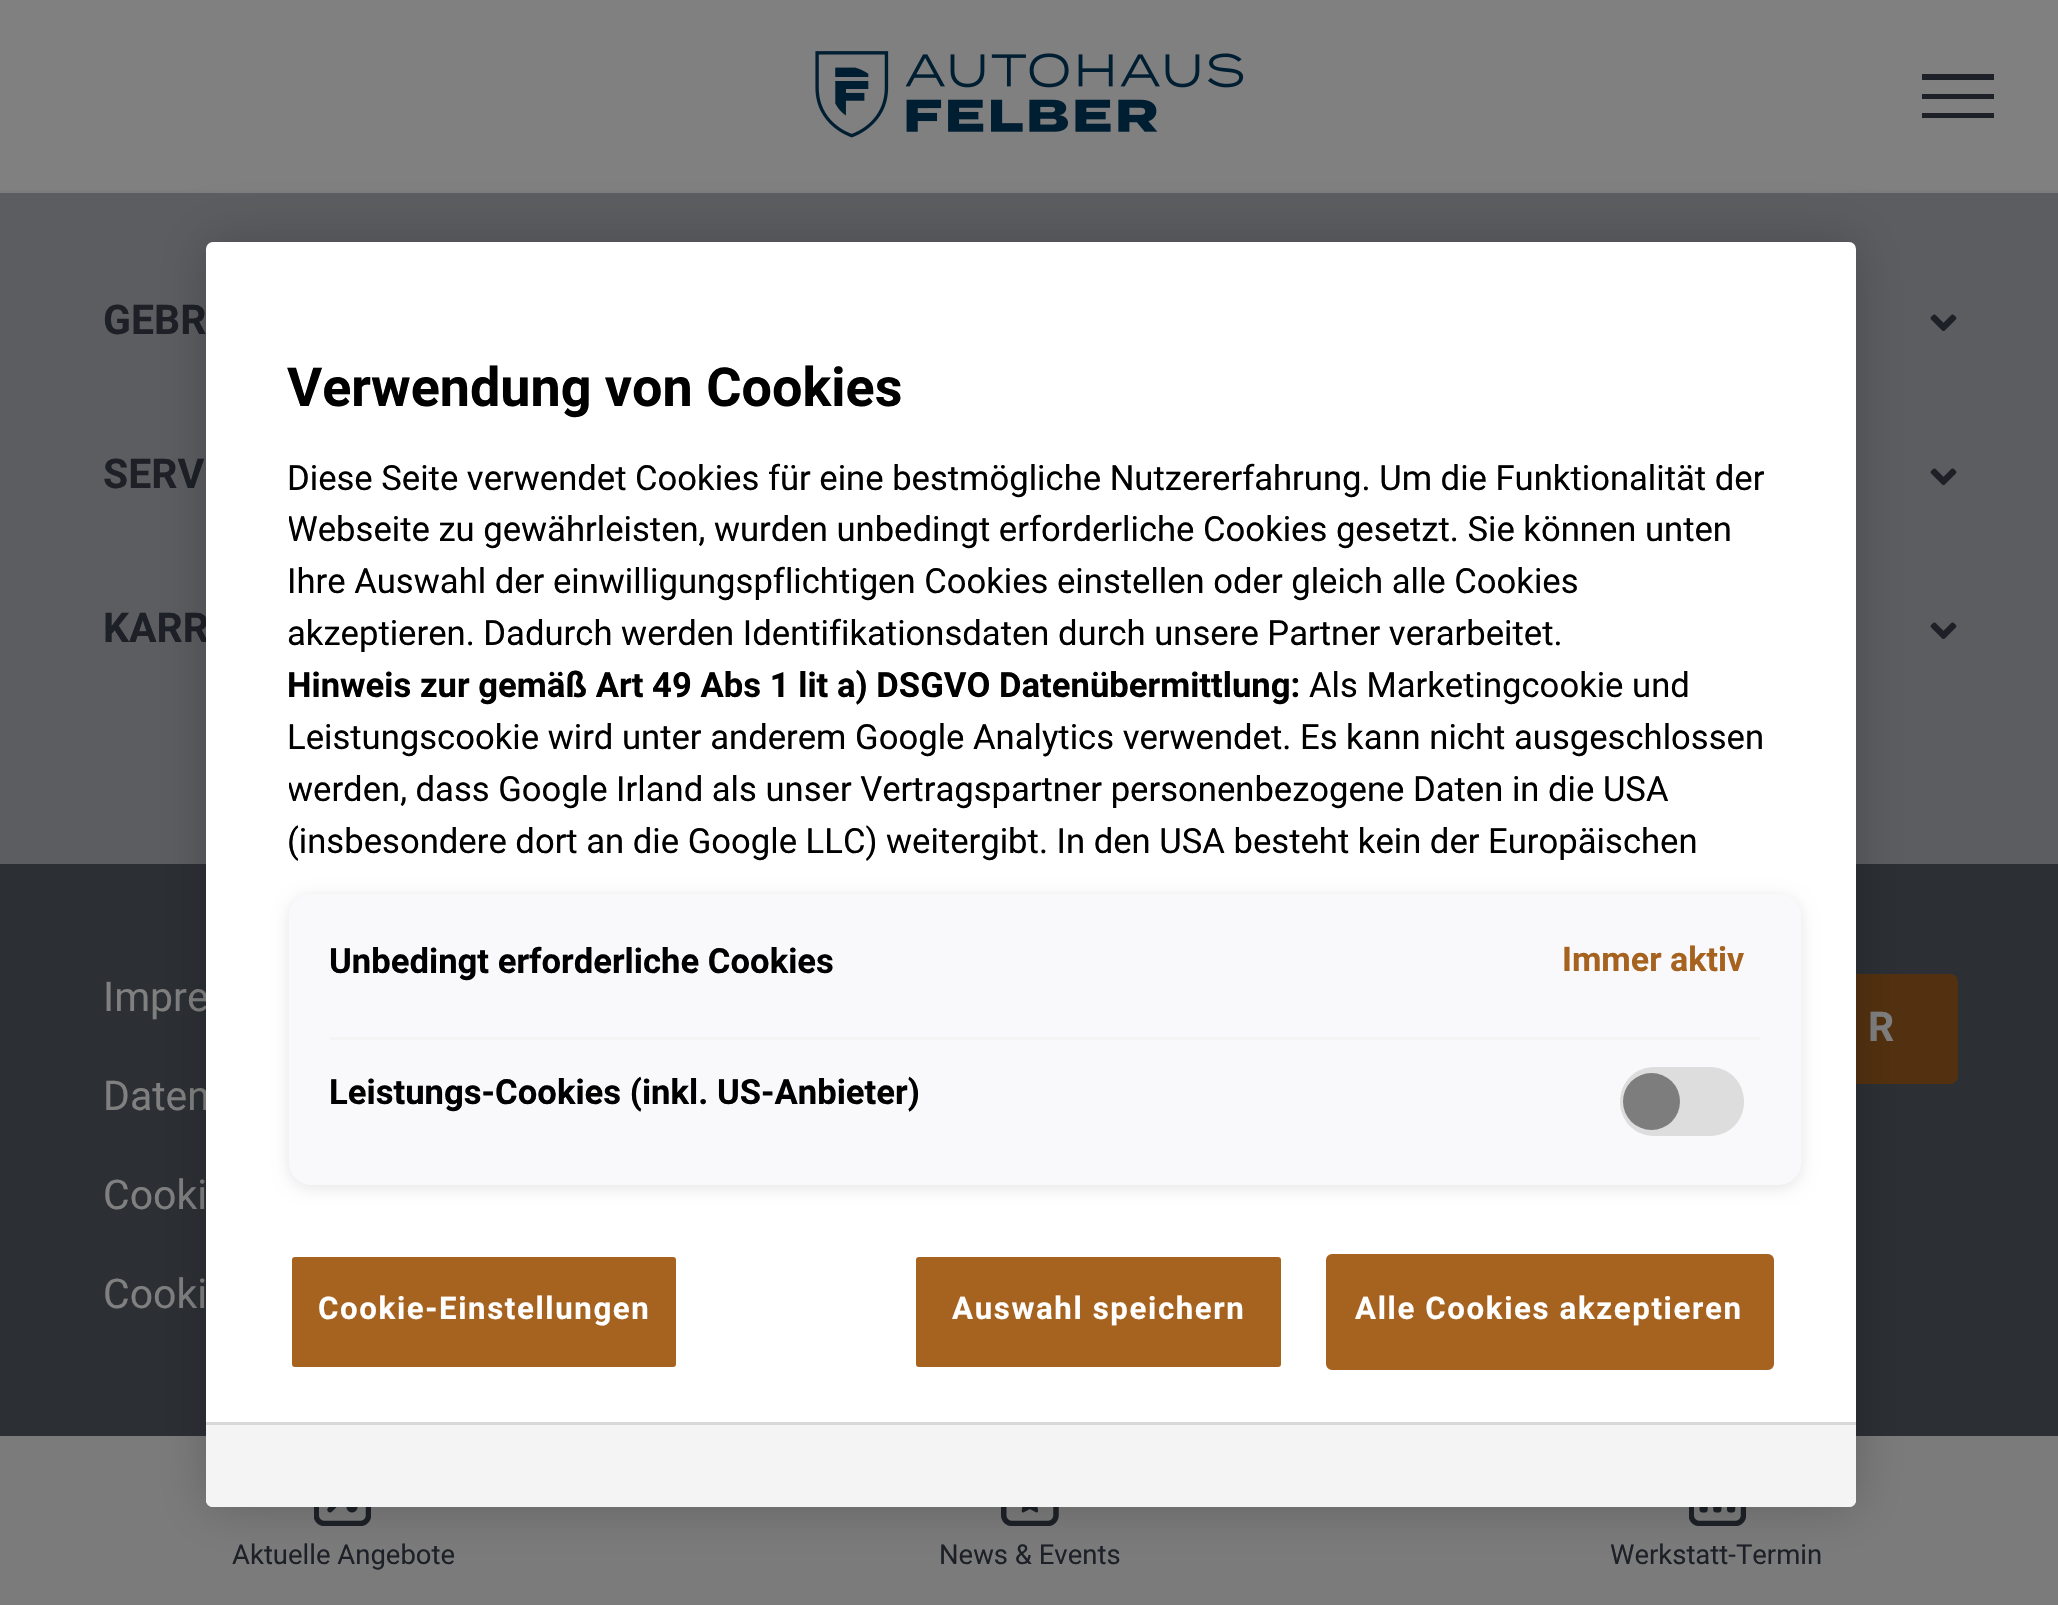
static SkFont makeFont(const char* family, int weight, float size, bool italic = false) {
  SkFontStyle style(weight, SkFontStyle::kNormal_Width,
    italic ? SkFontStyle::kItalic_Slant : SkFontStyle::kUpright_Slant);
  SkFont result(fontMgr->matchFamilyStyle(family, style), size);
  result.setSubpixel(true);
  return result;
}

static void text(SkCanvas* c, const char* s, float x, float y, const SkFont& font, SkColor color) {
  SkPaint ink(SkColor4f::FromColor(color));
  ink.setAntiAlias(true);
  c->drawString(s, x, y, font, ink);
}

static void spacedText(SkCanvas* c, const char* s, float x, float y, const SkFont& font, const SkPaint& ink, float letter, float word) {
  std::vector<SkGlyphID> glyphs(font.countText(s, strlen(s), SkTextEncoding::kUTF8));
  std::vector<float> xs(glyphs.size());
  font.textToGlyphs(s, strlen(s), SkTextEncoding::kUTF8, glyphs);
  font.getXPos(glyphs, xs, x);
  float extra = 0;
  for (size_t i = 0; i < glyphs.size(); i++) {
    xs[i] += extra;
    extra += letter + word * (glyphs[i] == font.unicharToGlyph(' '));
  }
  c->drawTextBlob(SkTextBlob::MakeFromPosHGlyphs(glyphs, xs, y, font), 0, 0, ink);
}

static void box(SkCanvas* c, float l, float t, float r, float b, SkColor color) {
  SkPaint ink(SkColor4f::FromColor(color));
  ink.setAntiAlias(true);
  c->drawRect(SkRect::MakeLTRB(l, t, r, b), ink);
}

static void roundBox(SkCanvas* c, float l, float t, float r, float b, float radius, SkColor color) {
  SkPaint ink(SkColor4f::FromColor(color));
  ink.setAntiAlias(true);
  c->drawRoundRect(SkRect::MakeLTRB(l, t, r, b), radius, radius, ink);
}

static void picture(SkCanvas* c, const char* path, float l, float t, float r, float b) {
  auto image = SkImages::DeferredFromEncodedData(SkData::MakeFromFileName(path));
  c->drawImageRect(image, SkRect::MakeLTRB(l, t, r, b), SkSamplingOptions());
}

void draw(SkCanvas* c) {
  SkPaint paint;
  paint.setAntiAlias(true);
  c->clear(0xff5b5d60);
  SkFont face1 = makeFont("Roboto", 700, 41);
  text(c, "GEBR", 103, 334, face1, 0xff1d2127);
  picture(c, "img_01.png", 1930, 314, 1957, 331);
  text(c, "SERV", 103, 488, face1, 0xff1d2127);
  picture(c, "img_01.png", 1930, 468, 1957, 485);
  text(c, "KARR", 103, 642, face1, 0xff1d2127);
  picture(c, "img_01.png", 1930, 622, 1957, 639);
  box(c, 0, 864, 2058, 1436, 0xff2c3035);
  SkFont face2 = makeFont("Roboto", 400, 41);
  text(c, "Impre", 103, 1011, face2, 0xff808080);
  text(c, "Daten", 103, 1110, face2, 0xff808080);
  text(c, "Cooki", 103, 1209, face2, 0xff808080);
  text(c, "Cooki", 103, 1308, face2, 0xff808080);
  roundBox(c, 1573, 974, 1958, 1084, 8, 0xff533110);
  text(c, "R", 1868, 1041, face1, 0xff808080);
  box(c, 0, 0, 2058, 190, 0xff808080);
  box(c, 0, 190, 2058, 193, 0xff7c7d7d);
  box(c, 0, 1436, 2058, 1605, 0xff7b7b7c);
  picture(c, "img_03.png", 314, 1507, 371, 1526);
  picture(c, "img_04.png", 1001, 1507, 1059, 1526);
  picture(c, "img_05.png", 1689, 1507, 1746, 1526);
  paint.setColor(0x33000000);
  paint.setMaskFilter(SkMaskFilter::MakeBlur(kNormal_SkBlurStyle, 25));
  c->drawRoundRect(SkRect::MakeLTRB(206, 242, 1856, 1507), 7, 7, paint);
  paint.setMaskFilter(nullptr);
  roundBox(c, 206, 242, 1856, 1507, 7, 0xffffffff);
  SkFont face3 = makeFont("Roboto", 700, 53.9f);
  text(c, "Verwendung von Cookies", 287, 406, face3, 0xff000000);
  SkFont face4 = makeFont("Roboto", 400, 34.65f);
  text(c, "Diese Seite verwendet Cookies für eine bestmögliche Nutzererfahrung. Um die Funktionalität der", 287, 490, face4, 0xff000000);
  c->save();
  c->clipRect(SkRect::MakeLTRB(289, 454, 1774, 866));
  text(c, "Webseite zu gewährleisten, wurden unbedingt erforderliche Cookies gesetzt. Sie können unten", 287, 541, face4, 0xff000000);
  c->restore();
  text(c, "Ihre Auswahl der einwilligungspflichtigen Cookies einstellen oder gleich alle Cookies", 287, 593, face4, 0xff000000);
  text(c, "akzeptieren. Dadurch werden Identifikationsdaten durch unsere Partner verarbeitet.", 287, 645, face4, 0xff000000);
  SkFont face5 = makeFont("Roboto", 700, 34.65f);
  text(c, "Hinweis zur gemäß Art 49 Abs 1 lit a) DSGVO Datenübermittlung:", 287, 697, face5, 0xff000000);
  text(c, "Als Marketingcookie und", 1309, 697, face4, 0xff000000);
  text(c, "Leistungscookie wird unter anderem Google Analytics verwendet. Es kann nicht ausgeschlossen", 287, 749, face4, 0xff000000);
  c->save();
  c->clipRect(SkRect::MakeLTRB(289, 454, 1774, 866));
  text(c, "werden, dass Google Irland als unser Vertragspartner personenbezogene Daten in die USA", 287, 801, face4, 0xff000000);
  c->restore();
  text(c, "(insbesondere dort an die Google LLC) weitergibt. In den USA besteht kein der Europäischen", 287, 853, face4, 0xff000000);
  paint.setColor(0x1a000000);
  paint.setMaskFilter(SkMaskFilter::MakeBlur(kNormal_SkBlurStyle, 8));
  c->drawRoundRect(SkRect::MakeLTRB(289, 897, 1801, 1188), 22, 22, paint);
  paint.setMaskFilter(nullptr);
  roundBox(c, 289, 894, 1801, 1185, 22, 0xfff9f9fc);
  box(c, 330, 1037, 1760, 1040, 0xfff4f4f4);
  text(c, "Unbedingt erforderliche Cookies", 329, 973, face5, 0xff000000);
  SkFont face6 = makeFont("Roboto", 700, 34);
  text(c, "Immer aktiv", 1562, 971, face6, 0xffa6621f);
  text(c, "Leistungs-Cookies (inkl. US-Anbieter)", 329, 1104, face5, 0xff000000);
  paint.setColor(0xffdddddd);
  c->drawPath(SkPathBuilder().moveTo(1654, 1067).lineTo(1710, 1067).cubicTo(1729, 1067, 1744, 1082, 1744, 1102).cubicTo(1744, 1121, 1729, 1136, 1710, 1136).lineTo(1654, 1136).cubicTo(1635, 1136, 1620, 1121, 1620, 1102).cubicTo(1620, 1082, 1635, 1067, 1654, 1067).close().detach(), paint);
  paint.setColor(0xff7d7d7d);
  c->drawCircle(1651.5f, 1101.5f, 28.5f, paint);
  paint.setColor(0xffa6621f);
  c->drawRoundRect(SkRect::MakeLTRB(290.5f, 1255.5f, 677.5f, 1368.5f), 4.5f, 4.5f, paint);
  paint.setStyle(SkPaint::kStroke_Style);
  paint.setStrokeWidth(3);
  paint.setColor(0xffffffff);
  c->drawRoundRect(SkRect::MakeLTRB(290.5f, 1255.5f, 677.5f, 1368.5f), 4.5f, 4.5f, paint);
  SkFont face7 = makeFont("Roboto", 700, 31.25f);
  paint.setStyle(SkPaint::kFill_Style);
  spacedText(c, "Cookie-Einstellungen", 318, 1319, face7, paint, 1.6f, 0);
  paint.setColor(0xffa6621f);
  c->drawRoundRect(SkRect::MakeLTRB(914.5f, 1255.5f, 1282.5f, 1368.5f), 4.5f, 4.5f, paint);
  paint.setStyle(SkPaint::kStroke_Style);
  paint.setColor(0xffffffff);
  c->drawRoundRect(SkRect::MakeLTRB(914.5f, 1255.5f, 1282.5f, 1368.5f), 4.5f, 4.5f, paint);
  paint.setStyle(SkPaint::kFill_Style);
  spacedText(c, "Auswahl speichern", 952, 1319, face7, paint, 1.6f, 0);
  paint.setColor(0xffa6621f);
  c->drawRoundRect(SkRect::MakeLTRB(1327.5f, 1255.5f, 1772.5f, 1368.5f), 4.5f, 4.5f, paint);
  paint.setStyle(SkPaint::kStroke_Style);
  c->drawRoundRect(SkRect::MakeLTRB(1327.5f, 1255.5f, 1772.5f, 1368.5f), 4.5f, 4.5f, paint);
  paint.setStyle(SkPaint::kFill_Style);
  paint.setColor(0xffffffff);
  spacedText(c, "Alle Cookies akzeptieren", 1355, 1319, face7, paint, 1.6f, 0);
  paint.setColor(0xfff4f4f4);
  c->drawPath(SkPathBuilder().moveTo(206, 1422).lineTo(1856, 1422).lineTo(1856, 1500).cubicTo(1856, 1504, 1853, 1507, 1849, 1507).lineTo(213, 1507).cubicTo(209, 1507, 206, 1504, 206, 1500).close().detach(), paint);
  box(c, 206, 1422, 1856, 1425, 0xffd8d8d8);
  picture(c, "img_02.png", 815, 51, 1244, 138);
  paint.setColor(0xff1d2127);
  c->drawPath(SkPathBuilder(SkPathFillType::kEvenOdd).moveTo(1994, 113).lineTo(1994, 118).lineTo(1922, 118).lineTo(1922, 113).close().moveTo(1994, 94).lineTo(1994, 99).lineTo(1922, 99).lineTo(1922, 94).close().moveTo(1994, 74).lineTo(1994, 80).lineTo(1922, 80).lineTo(1922, 74).close().detach(), paint);
  SkFont face8 = makeFont("Roboto", 400, 27.5f);
  text(c, "Aktuelle Angebote", 232, 1564, face8, 0xff1d2127);
  text(c, "News & Events", 939, 1564, face8, 0xff1d2127);
  text(c, "Werkstatt-Termin", 1610, 1564, face8, 0xff1d2127);
}
